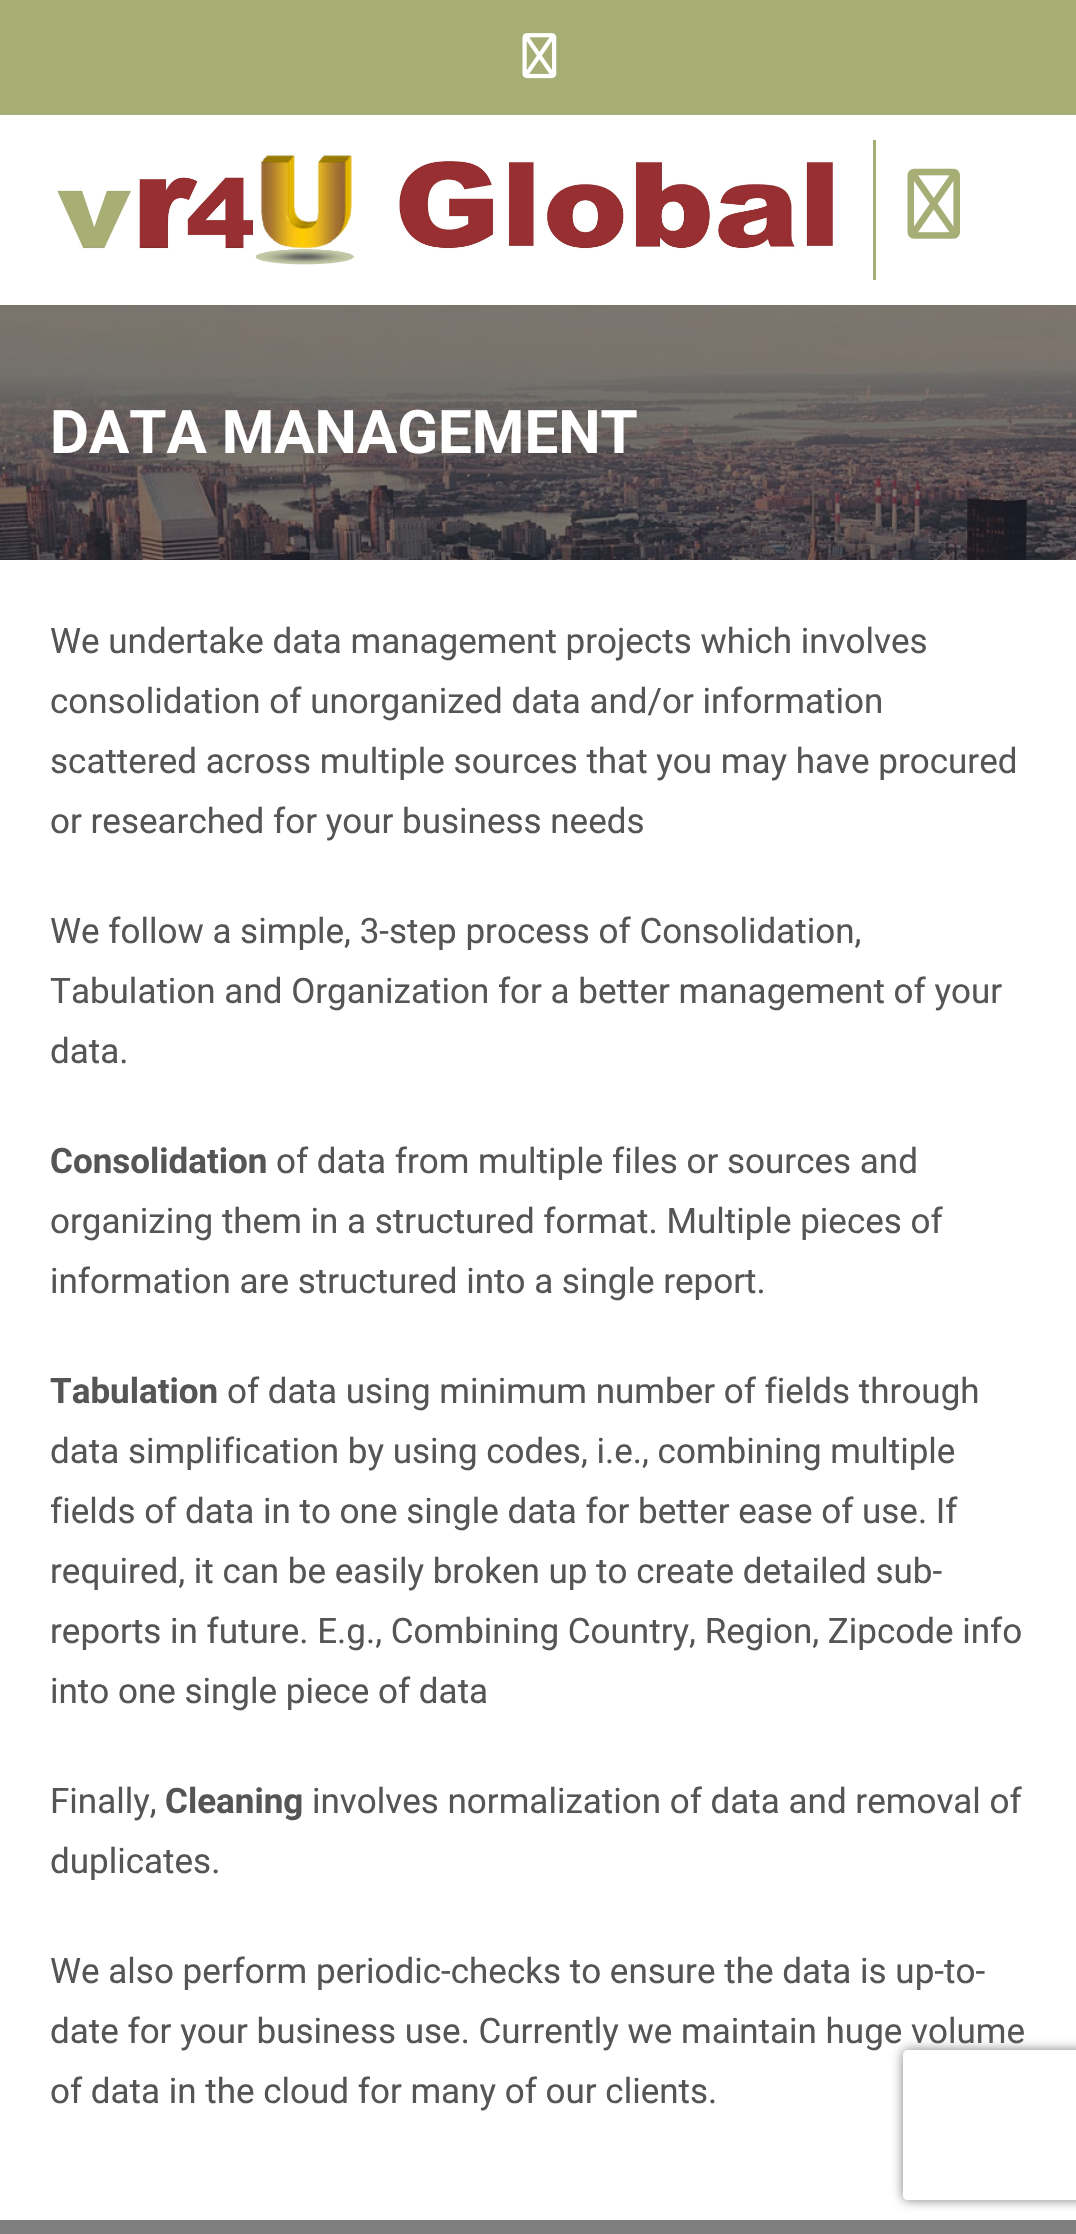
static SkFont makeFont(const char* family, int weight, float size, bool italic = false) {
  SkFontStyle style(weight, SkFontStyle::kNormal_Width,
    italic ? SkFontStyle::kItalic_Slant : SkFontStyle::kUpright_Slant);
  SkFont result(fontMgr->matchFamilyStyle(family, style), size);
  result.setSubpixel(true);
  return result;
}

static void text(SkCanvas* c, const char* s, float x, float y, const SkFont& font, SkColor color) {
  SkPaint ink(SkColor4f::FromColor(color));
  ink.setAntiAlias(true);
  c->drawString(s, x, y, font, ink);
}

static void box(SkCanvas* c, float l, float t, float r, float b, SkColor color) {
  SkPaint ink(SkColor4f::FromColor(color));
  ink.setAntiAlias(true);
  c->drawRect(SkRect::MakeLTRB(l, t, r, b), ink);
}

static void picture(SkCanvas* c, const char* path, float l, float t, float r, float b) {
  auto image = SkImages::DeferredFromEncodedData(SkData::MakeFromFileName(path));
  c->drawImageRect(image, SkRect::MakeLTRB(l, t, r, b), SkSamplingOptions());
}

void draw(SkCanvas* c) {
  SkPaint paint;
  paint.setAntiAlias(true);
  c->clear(0xffffffff);
  box(c, 0, 0, 1076, 115, 0xffa6ae76);
  picture(c, "img_01.png", 522, 33, 557, 79);
  picture(c, "img_02.png", 57, 153, 833, 266);
  box(c, 873, 140, 876, 280, 0xffa6ae76);
  picture(c, "img_03.png", 907, 168, 960, 239);
  picture(c, "img_04.png", 0, 305, 1076, 560);
  SkFont face1 = makeFont("Roboto", 700, 60);
  text(c, "DATA MANAGEMENT", 50, 453, face1, 0xffffffff);
  SkFont face2 = makeFont("Roboto", 400, 35);
  text(c, "We undertake data management projects which involves", 50, 653, face2, 0xff555555);
  text(c, "consolidation of unorganized data and/or information", 50, 713, face2, 0xff555555);
  text(c, "scattered across multiple sources that you may have procured", 50, 773, face2, 0xff555555);
  text(c, "or researched for your business needs", 50, 833, face2, 0xff555555);
  text(c, "We follow a simple, 3-step process of Consolidation,", 50, 943, face2, 0xff555555);
  text(c, "Tabulation and Organization for a better management of your", 50, 1003, face2, 0xff555555);
  text(c, "data.", 50, 1063, face2, 0xff555555);
  SkFont face3 = makeFont("Roboto", 700, 35);
  text(c, "Consolidation", 50, 1173, face3, 0xff555555);
  text(c, "of data from multiple files or sources and", 276, 1173, face2, 0xff555555);
  text(c, "organizing them in a structured format. Multiple pieces of", 50, 1233, face2, 0xff555555);
  text(c, "information are structured into a single report.", 50, 1293, face2, 0xff555555);
  text(c, "Tabulation", 50, 1403, face3, 0xff555555);
  text(c, "of data using minimum number of fields through", 227, 1403, face2, 0xff555555);
  text(c, "data simplification by using codes, i.e., combining multiple", 50, 1463, face2, 0xff555555);
  text(c, "fields of data in to one single data for better ease of use. If", 50, 1523, face2, 0xff555555);
  text(c, "required, it can be easily broken up to create detailed sub-", 50, 1583, face2, 0xff555555);
  text(c, "reports in future. E.g., Combining Country, Region, Zipcode info", 50, 1643, face2, 0xff555555);
  text(c, "into one single piece of data", 50, 1703, face2, 0xff555555);
  text(c, "Finally,", 50, 1813, face2, 0xff555555);
  text(c, "Cleaning", 165, 1813, face3, 0xff555555);
  text(c, "involves normalization of data and removal of", 312, 1813, face2, 0xff555555);
  text(c, "duplicates.", 50, 1873, face2, 0xff555555);
  text(c, "We also perform periodic-checks to ensure the data is up-to-", 50, 1983, face2, 0xff555555);
  text(c, "date for your business use. Currently we maintain huge volume", 50, 2043, face2, 0xff555555);
  text(c, "of data in the cloud for many of our clients.", 50, 2103, face2, 0xff555555);
  box(c, 0, 2220, 1076, 2234, 0xff7f7f7f);
  c->save();
  c->clipPath(SkPathBuilder(SkPathFillType::kEvenOdd).moveTo(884, 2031).lineTo(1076, 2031).lineTo(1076, 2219).lineTo(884, 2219).close().moveTo(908, 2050).lineTo(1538, 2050).cubicTo(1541, 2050, 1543, 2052, 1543, 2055).lineTo(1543, 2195).cubicTo(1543, 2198, 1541, 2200, 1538, 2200).lineTo(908, 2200).cubicTo(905, 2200, 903, 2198, 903, 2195).lineTo(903, 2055).cubicTo(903, 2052, 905, 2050, 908, 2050).close().detach(), true);
  paint.setColor(0xff808080);
  paint.setMaskFilter(SkMaskFilter::MakeBlur(kNormal_SkBlurStyle, 6));
  c->drawRoundRect(SkRect::MakeLTRB(903, 2050, 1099, 2200), 5, 5, paint);
  paint.setMaskFilter(nullptr);
  c->restore();
}
